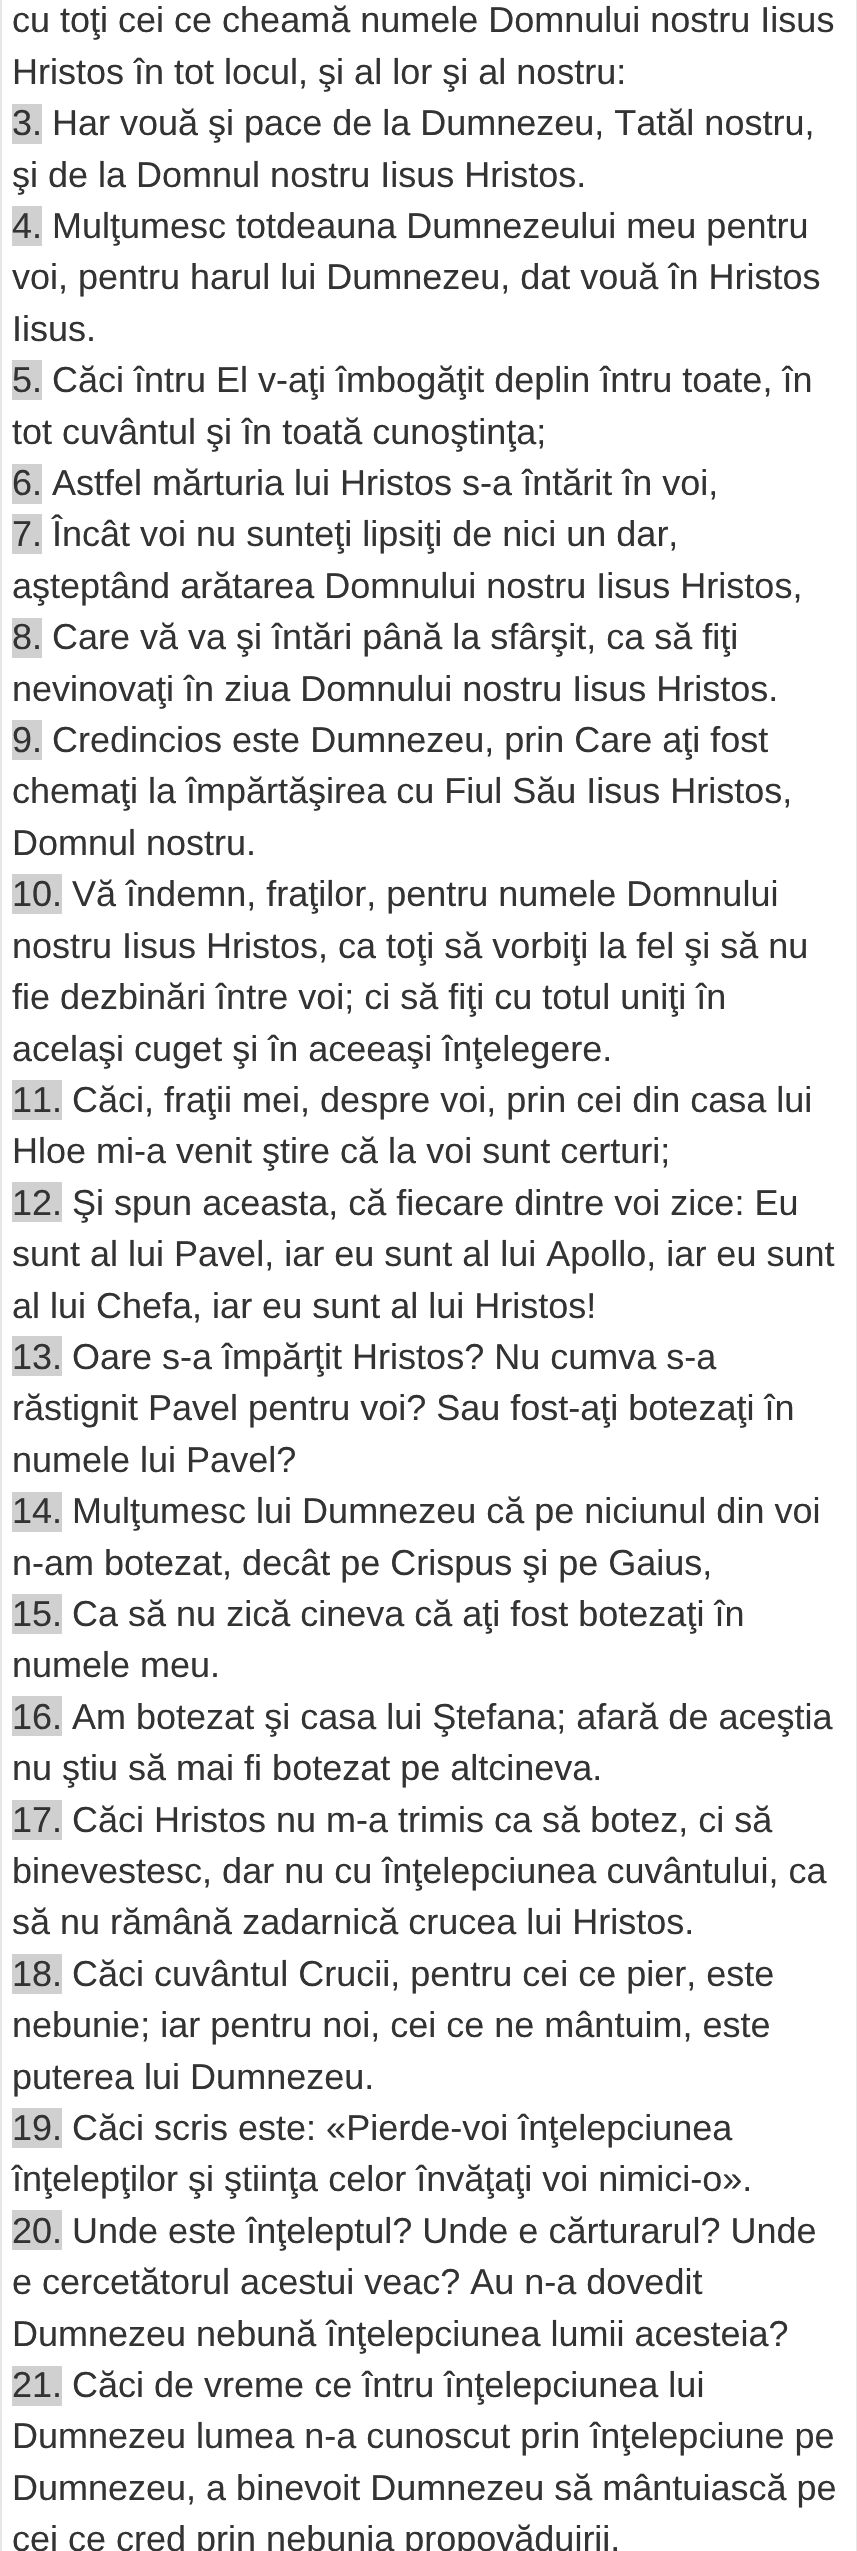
static SkFont makeFont(const char* family, int weight, float size, bool italic = false) {
  SkFontStyle style(weight, SkFontStyle::kNormal_Width,
    italic ? SkFontStyle::kItalic_Slant : SkFontStyle::kUpright_Slant);
  SkFont result(fontMgr->matchFamilyStyle(family, style), size);
  result.setSubpixel(true);
  return result;
}

static void text(SkCanvas* c, const char* s, float x, float y, const SkFont& font, SkColor color) {
  SkPaint ink(SkColor4f::FromColor(color));
  ink.setAntiAlias(true);
  c->drawString(s, x, y, font, ink);
}

static void box(SkCanvas* c, float l, float t, float r, float b, SkColor color) {
  SkPaint ink(SkColor4f::FromColor(color));
  ink.setAntiAlias(true);
  c->drawRect(SkRect::MakeLTRB(l, t, r, b), ink);
}

void draw(SkCanvas* c) {
  SkPaint paint;
  paint.setAntiAlias(true);
  c->clear(0xffffffff);
  box(c, 856, 0, 857, 2551, 0xffe7e7e7);
  box(c, 0, 0, 2, 2551, 0xffe7e7e7);
  SkFont face1 = makeFont("Liberation Sans", 400, 36);
  text(c, "cu toţi cei ce cheamă numele Domnului nostru Iisus", 12, 32, face1, 0xff333333);
  text(c, "Hristos în tot locul, şi al lor şi al nostru:", 12, 84, face1, 0xff333333);
  box(c, 12, 104, 42, 144, 0xffd0d0d0);
  text(c, "3. Har vouă şi pace de la Dumnezeu, Tatăl nostru,", 12, 135, face1, 0xff333333);
  text(c, "şi de la Domnul nostru Iisus Hristos.", 12, 187, face1, 0xff333333);
  box(c, 12, 206, 42, 246, 0xffd0d0d0);
  text(c, "4. Mulţumesc totdeauna Dumnezeului meu pentru", 12, 238, face1, 0xff333333);
  text(c, "voi, pentru harul lui Dumnezeu, dat vouă în Hristos", 12, 289, face1, 0xff333333);
  text(c, "Iisus.", 12, 341, face1, 0xff333333);
  box(c, 12, 360, 42, 400, 0xffd0d0d0);
  text(c, "5. Căci întru El v-aţi îmbogăţit deplin întru toate, în", 12, 392, face1, 0xff333333);
  text(c, "tot cuvântul şi în toată cunoştinţa;", 12, 444, face1, 0xff333333);
  box(c, 12, 464, 42, 504, 0xffd0d0d0);
  text(c, "6. Astfel mărturia lui Hristos s-a întărit în voi,", 12, 495, face1, 0xff333333);
  box(c, 12, 514, 42, 554, 0xffd0d0d0);
  text(c, "7. Încât voi nu sunteţi lipsiţi de nici un dar,", 12, 546, face1, 0xff333333);
  text(c, "aşteptând arătarea Domnului nostru Iisus Hristos,", 12, 598, face1, 0xff333333);
  box(c, 12, 618, 42, 658, 0xffd0d0d0);
  text(c, "8. Care vă va şi întări până la sfârşit, ca să fiţi", 12, 649, face1, 0xff333333);
  text(c, "nevinovaţi în ziua Domnului nostru Iisus Hristos.", 12, 701, face1, 0xff333333);
  box(c, 12, 720, 42, 760, 0xffd0d0d0);
  text(c, "9. Credincios este Dumnezeu, prin Care aţi fost", 12, 752, face1, 0xff333333);
  text(c, "chemaţi la împărtăşirea cu Fiul Său Iisus Hristos,", 12, 803, face1, 0xff333333);
  text(c, "Domnul nostru.", 12, 855, face1, 0xff333333);
  box(c, 12, 874, 62, 914, 0xffd0d0d0);
  text(c, "10. Vă îndemn, fraţilor, pentru numele Domnului", 12, 906, face1, 0xff333333);
  text(c, "nostru Iisus Hristos, ca toţi să vorbiţi la fel şi să nu", 12, 958, face1, 0xff333333);
  text(c, "fie dezbinări între voi; ci să fiţi cu totul uniţi în", 12, 1009, face1, 0xff333333);
  text(c, "acelaşi cuget şi în aceeaşi înţelegere.", 12, 1061, face1, 0xff333333);
  box(c, 12, 1080, 62, 1120, 0xffd0d0d0);
  text(c, "11. Căci, fraţii mei, despre voi, prin cei din casa lui", 12, 1112, face1, 0xff333333);
  text(c, "Hloe mi-a venit ştire că la voi sunt certuri;", 12, 1163, face1, 0xff333333);
  box(c, 12, 1182, 62, 1222, 0xffd0d0d0);
  text(c, "12. Şi spun aceasta, că fiecare dintre voi zice: Eu", 12, 1215, face1, 0xff333333);
  text(c, "sunt al lui Pavel, iar eu sunt al lui Apollo, iar eu sunt", 12, 1266, face1, 0xff333333);
  text(c, "al lui Chefa, iar eu sunt al lui Hristos!", 12, 1318, face1, 0xff333333);
  box(c, 12, 1336, 62, 1376, 0xffd0d0d0);
  text(c, "13. Oare s-a împărţit Hristos? Nu cumva s-a", 12, 1369, face1, 0xff333333);
  text(c, "răstignit Pavel pentru voi? Sau fost-aţi botezaţi în", 12, 1420, face1, 0xff333333);
  text(c, "numele lui Pavel?", 12, 1472, face1, 0xff333333);
  box(c, 12, 1492, 62, 1532, 0xffd0d0d0);
  text(c, "14. Mulţumesc lui Dumnezeu că pe niciunul din voi", 12, 1523, face1, 0xff333333);
  text(c, "n-am botezat, decât pe Crispus şi pe Gaius,", 12, 1575, face1, 0xff333333);
  box(c, 12, 1594, 62, 1634, 0xffd0d0d0);
  text(c, "15. Ca să nu zică cineva că aţi fost botezaţi în", 12, 1626, face1, 0xff333333);
  text(c, "numele meu.", 12, 1677, face1, 0xff333333);
  box(c, 12, 1696, 62, 1736, 0xffd0d0d0);
  text(c, "16. Am botezat şi casa lui Ştefana; afară de aceştia", 12, 1729, face1, 0xff333333);
  text(c, "nu ştiu să mai fi botezat pe altcineva.", 12, 1780, face1, 0xff333333);
  box(c, 12, 1800, 62, 1840, 0xffd0d0d0);
  text(c, "17. Căci Hristos nu m-a trimis ca să botez, ci să", 12, 1832, face1, 0xff333333);
  text(c, "binevestesc, dar nu cu înţelepciunea cuvântului, ca", 12, 1883, face1, 0xff333333);
  text(c, "să nu rămână zadarnică crucea lui Hristos.", 12, 1934, face1, 0xff333333);
  box(c, 12, 1954, 62, 1994, 0xffd0d0d0);
  text(c, "18. Căci cuvântul Crucii, pentru cei ce pier, este", 12, 1986, face1, 0xff333333);
  text(c, "nebunie; iar pentru noi, cei ce ne mântuim, este", 12, 2037, face1, 0xff333333);
  text(c, "puterea lui Dumnezeu.", 12, 2089, face1, 0xff333333);
  box(c, 12, 2108, 62, 2148, 0xffd0d0d0);
  text(c, "19. Căci scris este: «Pierde-voi înţelepciunea", 12, 2140, face1, 0xff333333);
  text(c, "înţelepţilor şi ştiinţa celor învăţaţi voi nimici-o».", 12, 2191, face1, 0xff333333);
  box(c, 12, 2210, 62, 2250, 0xffd0d0d0);
  text(c, "20. Unde este înţeleptul? Unde e cărturarul? Unde", 12, 2243, face1, 0xff333333);
  text(c, "e cercetătorul acestui veac? Au n-a dovedit", 12, 2294, face1, 0xff333333);
  text(c, "Dumnezeu nebună înţelepciunea lumii acesteia?", 12, 2346, face1, 0xff333333);
  box(c, 12, 2366, 62, 2406, 0xffd0d0d0);
  text(c, "21. Căci de vreme ce întru înţelepciunea lui", 12, 2397, face1, 0xff333333);
  text(c, "Dumnezeu lumea n-a cunoscut prin înţelepciune pe", 12, 2448, face1, 0xff333333);
  text(c, "Dumnezeu, a binevoit Dumnezeu să mântuiască pe", 12, 2500, face1, 0xff333333);
  text(c, "cei ce cred prin nebunia propovăduirii.", 12, 2551, face1, 0xff333333);
}
